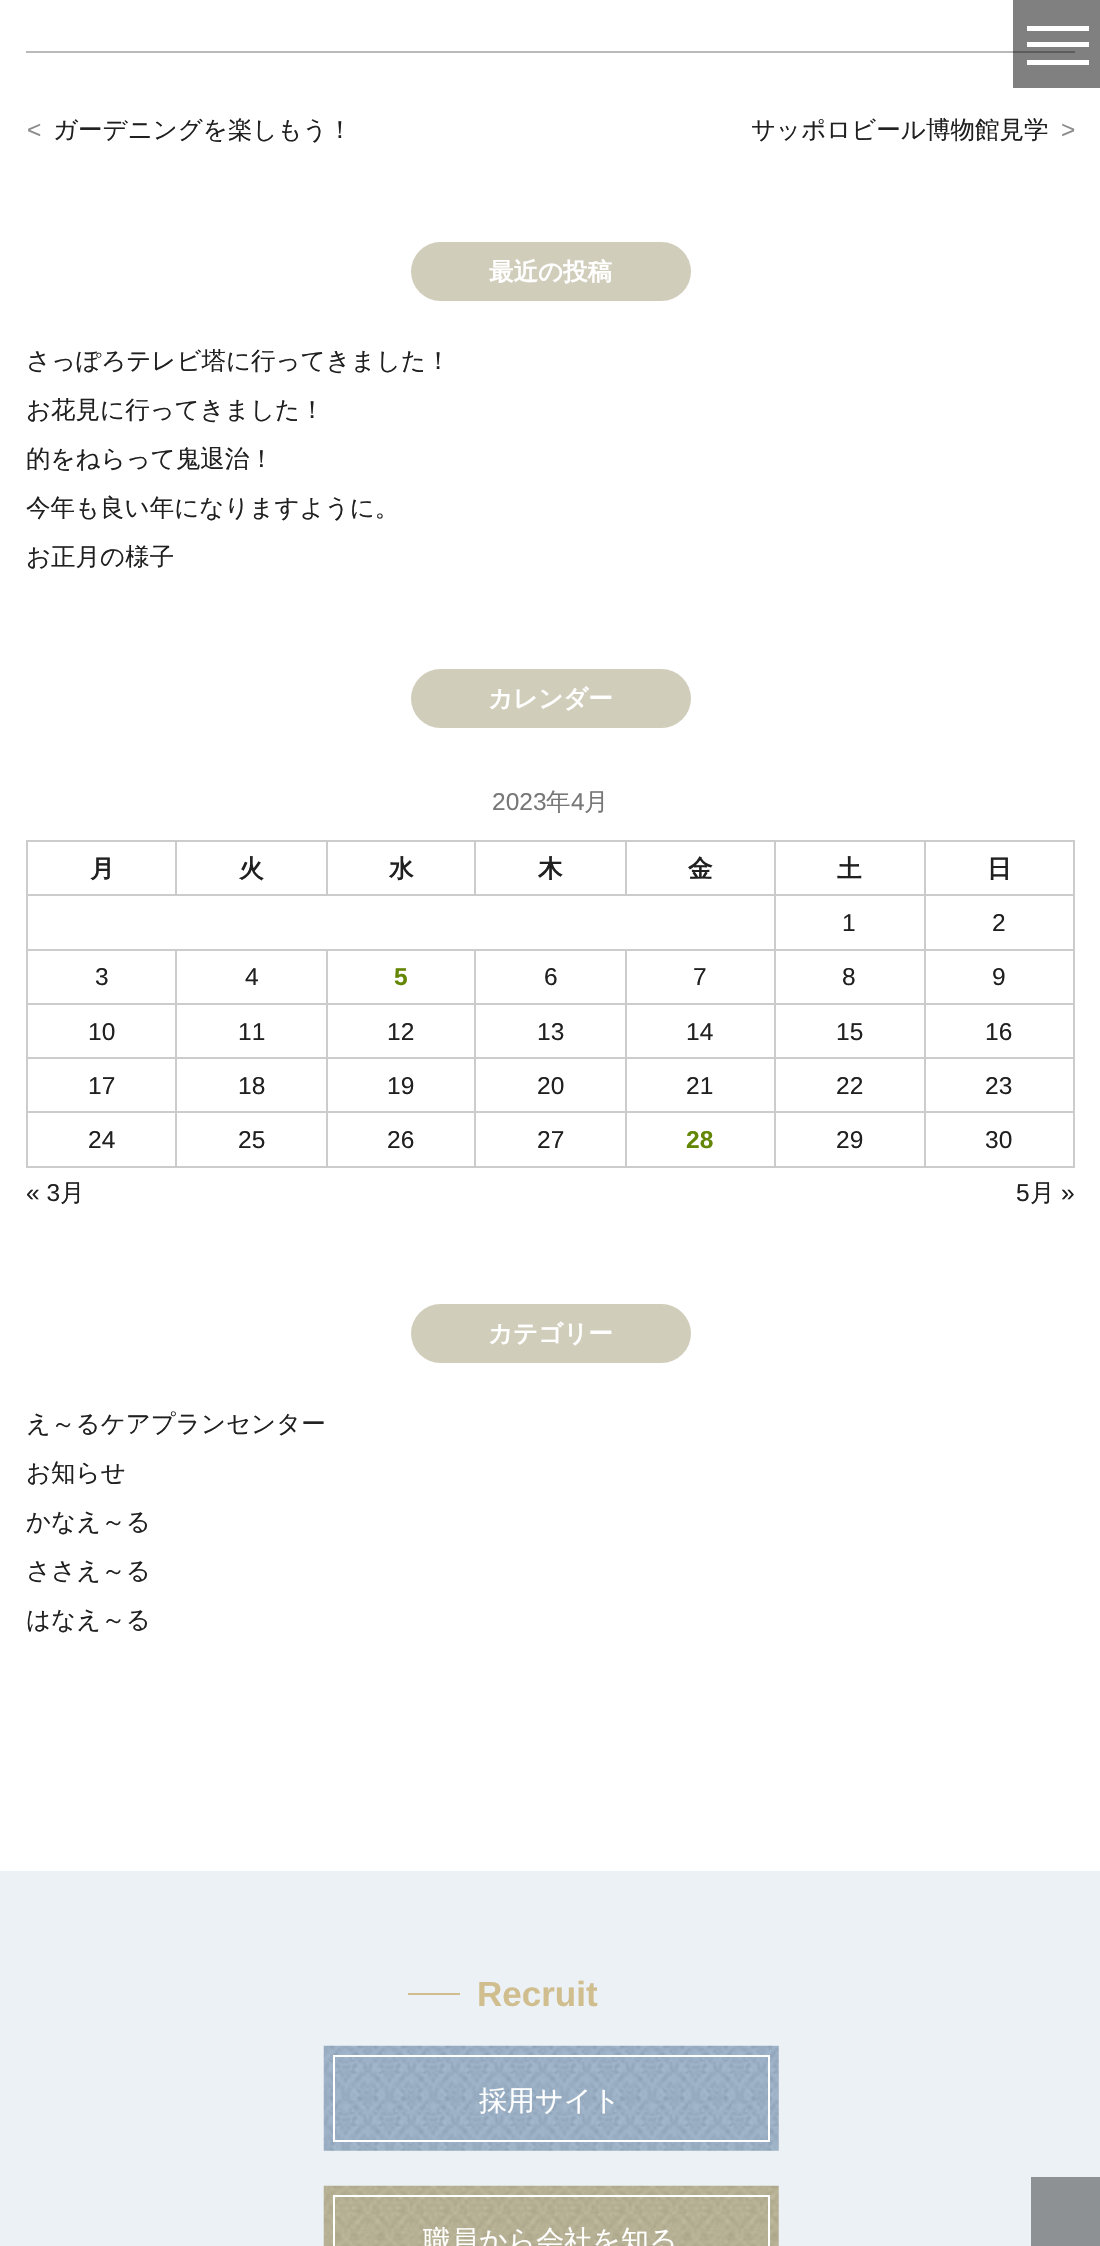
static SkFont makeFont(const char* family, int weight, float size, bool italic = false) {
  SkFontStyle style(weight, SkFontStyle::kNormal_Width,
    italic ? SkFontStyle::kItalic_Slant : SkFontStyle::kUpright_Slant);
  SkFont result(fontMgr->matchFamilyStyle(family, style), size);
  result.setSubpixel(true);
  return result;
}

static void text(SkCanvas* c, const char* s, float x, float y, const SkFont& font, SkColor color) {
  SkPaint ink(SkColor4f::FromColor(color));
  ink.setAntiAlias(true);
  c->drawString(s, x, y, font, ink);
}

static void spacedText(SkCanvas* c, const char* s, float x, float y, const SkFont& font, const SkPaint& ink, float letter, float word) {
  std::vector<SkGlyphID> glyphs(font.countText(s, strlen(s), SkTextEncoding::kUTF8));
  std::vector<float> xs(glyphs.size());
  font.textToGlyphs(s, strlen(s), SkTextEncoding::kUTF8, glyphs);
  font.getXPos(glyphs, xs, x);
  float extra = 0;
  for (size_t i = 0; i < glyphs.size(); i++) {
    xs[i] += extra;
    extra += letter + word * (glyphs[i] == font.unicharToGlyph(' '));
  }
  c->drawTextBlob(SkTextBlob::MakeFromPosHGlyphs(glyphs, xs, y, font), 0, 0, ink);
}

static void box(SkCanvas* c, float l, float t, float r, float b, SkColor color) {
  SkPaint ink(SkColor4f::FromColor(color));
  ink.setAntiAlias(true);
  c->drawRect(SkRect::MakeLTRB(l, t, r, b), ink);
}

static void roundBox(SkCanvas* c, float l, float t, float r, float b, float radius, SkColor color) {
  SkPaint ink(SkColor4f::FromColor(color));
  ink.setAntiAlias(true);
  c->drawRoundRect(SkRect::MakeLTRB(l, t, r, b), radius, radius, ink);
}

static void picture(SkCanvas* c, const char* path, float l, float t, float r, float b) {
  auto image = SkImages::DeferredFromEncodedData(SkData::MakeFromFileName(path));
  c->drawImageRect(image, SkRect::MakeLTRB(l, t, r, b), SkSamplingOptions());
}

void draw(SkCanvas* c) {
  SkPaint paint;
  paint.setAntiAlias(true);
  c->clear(0xffffffff);
  box(c, 1013, 0, 1100, 88, 0xff808080);
  box(c, 1027, 26, 1089, 31, 0xffffffff);
  box(c, 1027, 42, 1089, 47, 0xffffffff);
  box(c, 1027, 60, 1089, 65, 0xffffffff);
  box(c, 26, 51, 1013, 53, 0xffbababa);
  box(c, 1013, 51, 1075, 53, 0xff5d5d5d);
  SkFont face1 = makeFont("Liberation Sans", 400, 24.5f);
  paint.setColor(0xff8c8c8c);
  spacedText(c, "<", 27, 138, face1, paint, -1, 0);
  SkFont face2 = makeFont("WenQuanYi Zen Hei", 500, 24.5f);
  text(c, "ガーデニングを楽しもう！", 53, 138, face2, 0xff202020);
  text(c, "サッポロビール博物館見学", 751, 138, face2, 0xff202020);
  spacedText(c, ">", 1061, 138, face1, paint, -1, 0);
  roundBox(c, 411, 242, 691, 301, 29.5f, 0xffd1cdbb);
  SkFont face3 = makeFont("WenQuanYi Zen Hei", 700, 24.5f);
  text(c, "最近の投稿", 489, 280, face3, 0xffffffff);
  text(c, "さっぽろテレビ塔に行ってきました！", 26, 369, face2, 0xff202020);
  text(c, "お花見に行ってきました！", 26, 418, face2, 0xff202020);
  text(c, "的をねらって鬼退治！", 26, 467, face2, 0xff202020);
  text(c, "今年も良い年になりますように。", 26, 516, face2, 0xff202020);
  text(c, "お正月の様子", 26, 565, face2, 0xff202020);
  roundBox(c, 411, 669, 691, 728, 29.5f, 0xffd1cdbb);
  text(c, "カレンダー", 488, 707, face3, 0xffffffff);
  text(c, "2023", 492, 810, face1, 0xff777777);
  text(c, "年", 546, 810, face2, 0xff777777);
  text(c, "4", 571, 810, face1, 0xff777777);
  text(c, "月", 584, 810, face2, 0xff777777);
  box(c, 924, 840, 1075, 842, 0xffcccccc);
  box(c, 924, 894, 1075, 896, 0xffcccccc);
  box(c, 924, 949, 1075, 951, 0xffcccccc);
  box(c, 924, 1003, 1075, 1005, 0xffcccccc);
  box(c, 924, 1057, 1075, 1059, 0xffcccccc);
  box(c, 924, 1111, 1075, 1113, 0xffcccccc);
  box(c, 1073, 1111, 1075, 1167, 0xffcccccc);
  box(c, 924, 1166, 1075, 1168, 0xffcccccc);
  box(c, 924, 1111, 926, 1167, 0xffcccccc);
  box(c, 774, 1111, 926, 1113, 0xffcccccc);
  box(c, 924, 1057, 926, 1113, 0xffcccccc);
  box(c, 774, 1057, 926, 1059, 0xffcccccc);
  box(c, 924, 1003, 926, 1059, 0xffcccccc);
  box(c, 774, 1003, 926, 1005, 0xffcccccc);
  box(c, 924, 949, 926, 1005, 0xffcccccc);
  box(c, 774, 949, 926, 951, 0xffcccccc);
  box(c, 924, 894, 926, 950, 0xffcccccc);
  box(c, 774, 894, 926, 896, 0xffcccccc);
  box(c, 924, 840, 926, 896, 0xffcccccc);
  box(c, 774, 840, 926, 842, 0xffcccccc);
  box(c, 774, 1166, 926, 1168, 0xffcccccc);
  box(c, 774, 1111, 776, 1167, 0xffcccccc);
  box(c, 625, 1111, 775, 1113, 0xffcccccc);
  box(c, 774, 1057, 776, 1113, 0xffcccccc);
  box(c, 625, 1057, 775, 1059, 0xffcccccc);
  box(c, 774, 1003, 776, 1059, 0xffcccccc);
  box(c, 625, 1003, 775, 1005, 0xffcccccc);
  box(c, 774, 949, 776, 1005, 0xffcccccc);
  box(c, 625, 949, 775, 951, 0xffcccccc);
  box(c, 774, 894, 776, 950, 0xffcccccc);
  box(c, 26, 894, 775, 896, 0xffcccccc);
  box(c, 774, 840, 776, 896, 0xffcccccc);
  box(c, 625, 840, 775, 842, 0xffcccccc);
  box(c, 625, 840, 627, 896, 0xffcccccc);
  box(c, 474, 840, 627, 842, 0xffcccccc);
  box(c, 474, 840, 476, 896, 0xffcccccc);
  box(c, 326, 840, 476, 842, 0xffcccccc);
  box(c, 326, 840, 328, 896, 0xffcccccc);
  box(c, 175, 840, 327, 842, 0xffcccccc);
  box(c, 175, 840, 177, 896, 0xffcccccc);
  box(c, 26, 840, 177, 842, 0xffcccccc);
  box(c, 625, 1166, 775, 1168, 0xffcccccc);
  box(c, 625, 1111, 627, 1167, 0xffcccccc);
  box(c, 474, 1111, 627, 1113, 0xffcccccc);
  box(c, 625, 1057, 627, 1113, 0xffcccccc);
  box(c, 474, 1057, 627, 1059, 0xffcccccc);
  box(c, 625, 1003, 627, 1059, 0xffcccccc);
  box(c, 474, 1003, 627, 1005, 0xffcccccc);
  box(c, 625, 949, 627, 1005, 0xffcccccc);
  box(c, 474, 949, 627, 951, 0xffcccccc);
  box(c, 474, 1166, 627, 1168, 0xffcccccc);
  box(c, 474, 1111, 476, 1167, 0xffcccccc);
  box(c, 326, 1111, 476, 1113, 0xffcccccc);
  box(c, 474, 1057, 476, 1113, 0xffcccccc);
  box(c, 326, 1057, 476, 1059, 0xffcccccc);
  box(c, 474, 1003, 476, 1059, 0xffcccccc);
  box(c, 326, 1003, 476, 1005, 0xffcccccc);
  box(c, 474, 949, 476, 1005, 0xffcccccc);
  box(c, 326, 949, 476, 951, 0xffcccccc);
  box(c, 326, 1166, 476, 1168, 0xffcccccc);
  box(c, 326, 1111, 328, 1167, 0xffcccccc);
  box(c, 175, 1111, 327, 1113, 0xffcccccc);
  box(c, 326, 1057, 328, 1113, 0xffcccccc);
  box(c, 175, 1057, 327, 1059, 0xffcccccc);
  box(c, 326, 1003, 328, 1059, 0xffcccccc);
  box(c, 175, 1003, 327, 1005, 0xffcccccc);
  box(c, 326, 949, 328, 1005, 0xffcccccc);
  box(c, 175, 949, 327, 951, 0xffcccccc);
  box(c, 175, 1166, 327, 1168, 0xffcccccc);
  box(c, 175, 1111, 177, 1167, 0xffcccccc);
  box(c, 26, 1111, 177, 1113, 0xffcccccc);
  box(c, 175, 1057, 177, 1113, 0xffcccccc);
  box(c, 26, 1057, 177, 1059, 0xffcccccc);
  box(c, 175, 1003, 177, 1059, 0xffcccccc);
  box(c, 26, 1003, 177, 1005, 0xffcccccc);
  box(c, 175, 949, 177, 1005, 0xffcccccc);
  box(c, 26, 949, 177, 951, 0xffcccccc);
  box(c, 26, 1166, 177, 1168, 0xffcccccc);
  box(c, 26, 1111, 28, 1167, 0xffcccccc);
  box(c, 26, 1057, 28, 1113, 0xffcccccc);
  box(c, 26, 1003, 28, 1059, 0xffcccccc);
  box(c, 26, 949, 28, 1005, 0xffcccccc);
  box(c, 26, 894, 28, 950, 0xffcccccc);
  box(c, 26, 840, 28, 896, 0xffcccccc);
  text(c, "月", 90, 877, face3, 0xff202020);
  text(c, "火", 239, 877, face3, 0xff202020);
  text(c, "水", 389, 877, face3, 0xff202020);
  text(c, "木", 538, 877, face3, 0xff202020);
  text(c, "金", 688, 877, face3, 0xff202020);
  text(c, "土", 837, 877, face3, 0xff202020);
  box(c, 1073, 1057, 1075, 1113, 0xffcccccc);
  box(c, 1073, 1003, 1075, 1059, 0xffcccccc);
  box(c, 1073, 949, 1075, 1005, 0xffcccccc);
  box(c, 1073, 894, 1075, 950, 0xffcccccc);
  box(c, 1073, 840, 1075, 896, 0xffcccccc);
  text(c, "日", 987, 877, face3, 0xff202020);
  text(c, "1", 842, 931, face1, 0xff202020);
  text(c, "2", 992, 931, face1, 0xff202020);
  text(c, "3", 95, 985, face1, 0xff202020);
  text(c, "4", 245, 985, face1, 0xff202020);
  SkFont face4 = makeFont("Liberation Sans", 700, 24.5f);
  text(c, "5", 394, 985, face4, 0xff638604);
  text(c, "6", 544, 985, face1, 0xff202020);
  text(c, "7", 693, 985, face1, 0xff202020);
  text(c, "8", 842, 985, face1, 0xff202020);
  text(c, "9", 992, 985, face1, 0xff202020);
  text(c, "10", 88, 1040, face1, 0xff202020);
  text(c, "11", 238, 1040, face1, 0xff202020);
  text(c, "12", 387, 1040, face1, 0xff202020);
  text(c, "13", 537, 1040, face1, 0xff202020);
  text(c, "14", 686, 1040, face1, 0xff202020);
  text(c, "15", 836, 1040, face1, 0xff202020);
  text(c, "16", 985, 1040, face1, 0xff202020);
  text(c, "17", 88, 1094, face1, 0xff202020);
  text(c, "18", 238, 1094, face1, 0xff202020);
  text(c, "19", 387, 1094, face1, 0xff202020);
  text(c, "20", 537, 1094, face1, 0xff202020);
  text(c, "21", 686, 1094, face1, 0xff202020);
  text(c, "22", 836, 1094, face1, 0xff202020);
  text(c, "23", 985, 1094, face1, 0xff202020);
  text(c, "24", 88, 1148, face1, 0xff202020);
  text(c, "25", 238, 1148, face1, 0xff202020);
  text(c, "26", 387, 1148, face1, 0xff202020);
  text(c, "27", 537, 1148, face1, 0xff202020);
  text(c, "28", 686, 1148, face4, 0xff638604);
  text(c, "29", 836, 1148, face1, 0xff202020);
  text(c, "30", 985, 1148, face1, 0xff202020);
  text(c, "« 3", 26, 1201, face1, 0xff202020);
  text(c, "月", 60, 1201, face2, 0xff202020);
  text(c, "5", 1016, 1201, face1, 0xff202020);
  text(c, "月", 1030, 1201, face2, 0xff202020);
  text(c, "»", 1061, 1201, face1, 0xff202020);
  roundBox(c, 411, 1304, 691, 1363, 29.5f, 0xffd1cdbb);
  text(c, "カテゴリー", 488, 1342, face3, 0xffffffff);
  text(c, "え～るケアプランセンター", 26, 1432, face2, 0xff202020);
  text(c, "お知らせ", 26, 1481, face2, 0xff202020);
  text(c, "かなえ～る", 26, 1530, face2, 0xff202020);
  text(c, "ささえ～る", 26, 1579, face2, 0xff202020);
  text(c, "はなえ～る", 26, 1628, face2, 0xff202020);
  box(c, 0, 1871, 1100, 2246, 0xffecf1f6);
  box(c, 408, 1993, 460, 1995, 0xffd0be8f);
  SkFont face5 = makeFont("Liberation Sans", 700, 35);
  text(c, "Recruit", 477, 2006, face5, 0xffd0be8f);
  box(c, 324, 2046, 779, 2151, 0xfff2ecdc);
  picture(c, "img_01.png", 323, 2045, 779, 2151);
  paint.setStyle(SkPaint::kStroke_Style);
  paint.setStrokeWidth(2);
  paint.setColor(0xffffffff);
  c->drawRect(SkRect::MakeLTRB(334, 2056, 769, 2141), paint);
  SkFont face6 = makeFont("WenQuanYi Zen Hei", 500, 28);
  text(c, "採用サイト", 479, 2110, face6, 0xffffffff);
  picture(c, "img_02.png", 323, 2185, 779, 2246);
  c->drawRect(SkRect::MakeLTRB(334, 2196, 769, 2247), paint);
  text(c, "職員から会社を知る", 423, 2250, face6, 0xffffffff);
  box(c, 1031, 2177, 1100, 2246, 0xff8e9194);
}
